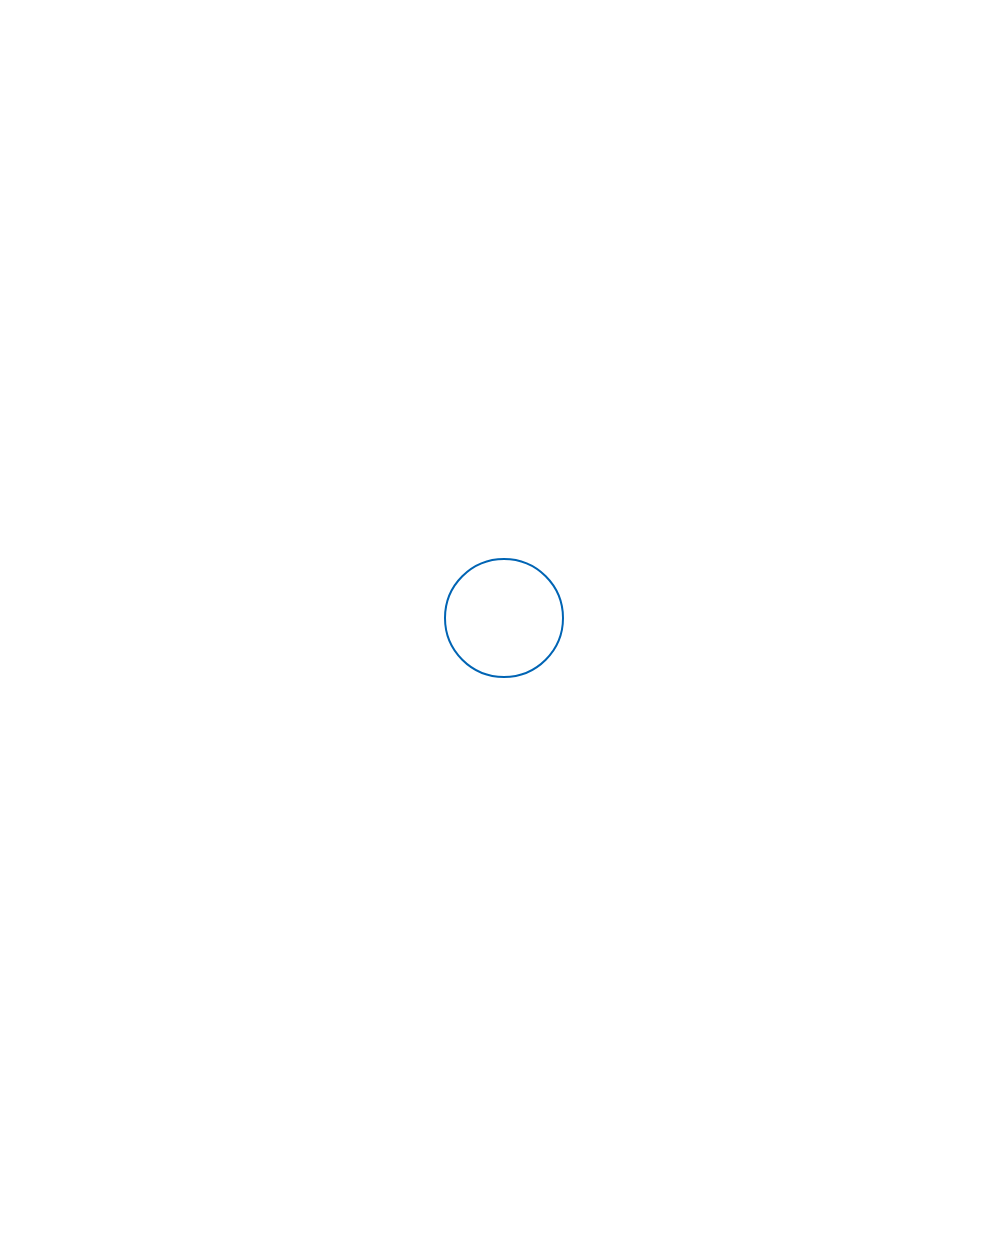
void draw(SkCanvas* c) {
  SkPaint paint;
  paint.setAntiAlias(true);
  c->clear(0xffffffff);
  paint.setStyle(SkPaint::kStroke_Style);
  paint.setStrokeWidth(2);
  paint.setColor(0xff0064b4);
  c->drawCircle(504, 618, 59, paint);
}
